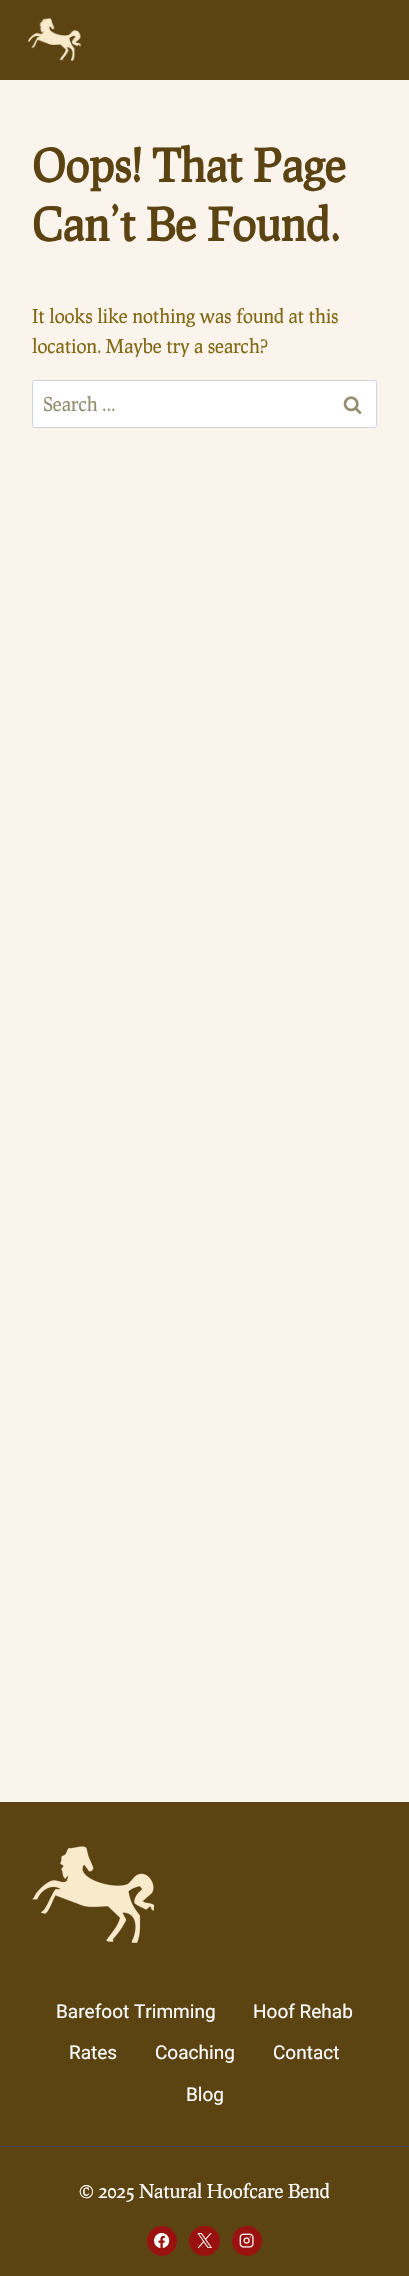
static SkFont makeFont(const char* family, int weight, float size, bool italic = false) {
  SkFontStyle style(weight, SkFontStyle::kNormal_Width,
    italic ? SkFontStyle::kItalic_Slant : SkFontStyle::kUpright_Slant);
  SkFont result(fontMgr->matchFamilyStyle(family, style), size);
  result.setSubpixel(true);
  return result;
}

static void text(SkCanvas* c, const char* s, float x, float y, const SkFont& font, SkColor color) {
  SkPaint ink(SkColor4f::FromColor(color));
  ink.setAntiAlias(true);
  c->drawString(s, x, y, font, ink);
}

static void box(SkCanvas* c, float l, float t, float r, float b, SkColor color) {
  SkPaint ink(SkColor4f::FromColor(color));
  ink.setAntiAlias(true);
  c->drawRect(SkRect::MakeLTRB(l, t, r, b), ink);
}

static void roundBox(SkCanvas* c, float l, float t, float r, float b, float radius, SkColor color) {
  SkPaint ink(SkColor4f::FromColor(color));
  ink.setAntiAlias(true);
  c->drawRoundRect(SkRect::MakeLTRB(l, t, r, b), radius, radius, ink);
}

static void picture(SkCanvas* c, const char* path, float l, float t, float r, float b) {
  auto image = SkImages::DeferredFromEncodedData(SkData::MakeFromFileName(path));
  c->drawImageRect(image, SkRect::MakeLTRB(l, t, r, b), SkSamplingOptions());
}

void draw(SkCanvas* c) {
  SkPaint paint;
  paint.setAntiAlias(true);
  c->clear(0xfffaf4ed);
  box(c, 0, 0, 409, 80, 0xff5c4312);
  picture(c, "img_01.png", 27, 17, 81, 61);
  SkFont face1 = makeFont("Prociono", 700, 45);
  text(c, "Oops! That Page", 32, 182, face1, 0xff5c4312);
  text(c, "Can’t Be Found.", 32, 241, face1, 0xff5c4312);
  SkFont face2 = makeFont("Prociono", 400, 19);
  text(c, "It looks like nothing was found at this", 32, 323, face2, 0xff836915);
  text(c, "location. Maybe try a search?", 32, 353, face2, 0xff836915);
  paint.setColor(0xffffffff);
  c->drawRoundRect(SkRect::MakeLTRB(32.5f, 380.5f, 376.5f, 427.5f), 2.5f, 2.5f, paint);
  paint.setStyle(SkPaint::kStroke_Style);
  paint.setStrokeWidth(1);
  paint.setColor(0xffcbd5e0);
  c->drawRoundRect(SkRect::MakeLTRB(32.5f, 380.5f, 376.5f, 427.5f), 2.5f, 2.5f, paint);
  text(c, "Search …", 43, 411, face2, 0xff968e71);
  picture(c, "img_02.png", 343, 396, 362, 414);
  box(c, 0, 1802, 409, 2146, 0xff5c4312);
  picture(c, "img_03.png", 32, 1846, 155, 1943);
  SkFont face3 = makeFont("Heebo", 400, 19);
  text(c, "Barefoot Trimming", 56, 2018, face3, 0xffffffff);
  text(c, "Hoof Rehab", 253, 2018, face3, 0xffffffff);
  text(c, "Rates", 69, 2059, face3, 0xffffffff);
  text(c, "Coaching", 155, 2059, face3, 0xffffffff);
  text(c, "Contact", 273, 2059, face3, 0xffffffff);
  text(c, "Blog", 186, 2101, face3, 0xffffffff);
  box(c, 0, 2147, 409, 2276, 0xff5c4312);
  box(c, 0, 2146, 409, 2147, 0xff3e4549);
  text(c, "© 2025 Natural Hoofcare Bend", 79, 2198, face2, 0xffffffff);
  paint.setStyle(SkPaint::kFill_Style);
  paint.setColor(0xff99120f);
  c->drawCircle(162, 2241, 15, paint);
  picture(c, "img_04.png", 154, 2233, 170, 2248);
  roundBox(c, 189, 2226, 220, 2256, 15, 0xff99120f);
  picture(c, "img_05.png", 197, 2233, 212, 2248);
  c->drawCircle(247, 2241, 15, paint);
  picture(c, "img_06.png", 239, 2233, 254, 2248);
}
